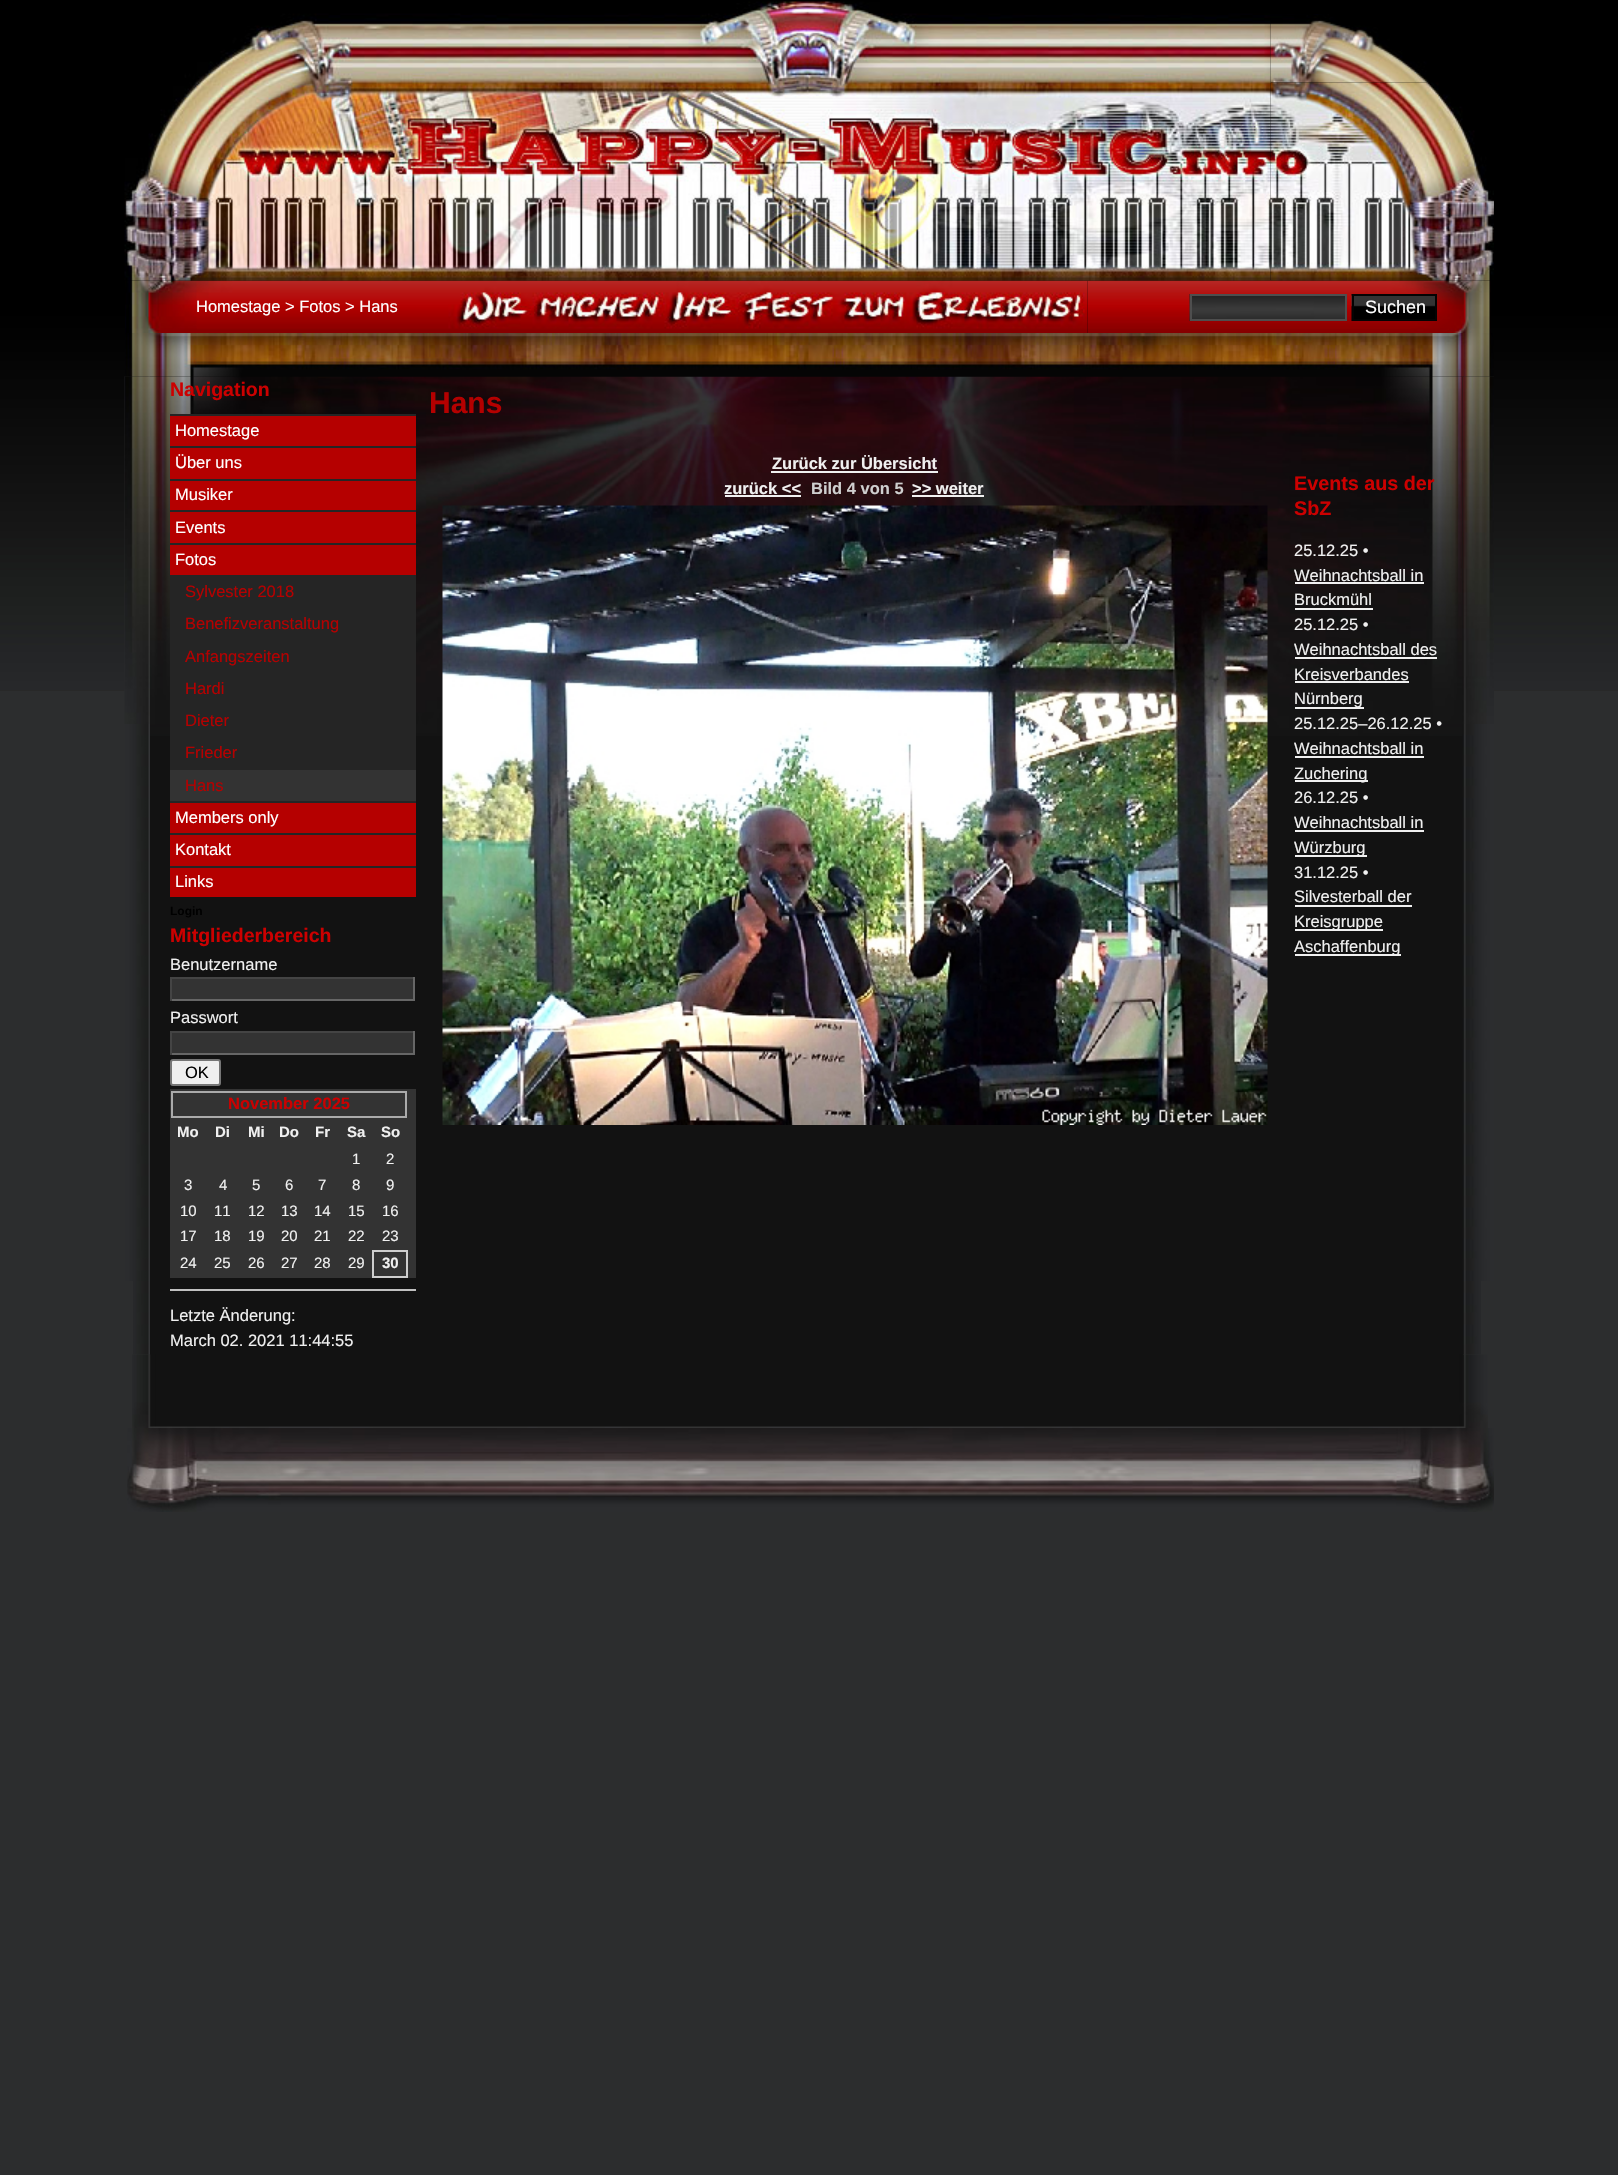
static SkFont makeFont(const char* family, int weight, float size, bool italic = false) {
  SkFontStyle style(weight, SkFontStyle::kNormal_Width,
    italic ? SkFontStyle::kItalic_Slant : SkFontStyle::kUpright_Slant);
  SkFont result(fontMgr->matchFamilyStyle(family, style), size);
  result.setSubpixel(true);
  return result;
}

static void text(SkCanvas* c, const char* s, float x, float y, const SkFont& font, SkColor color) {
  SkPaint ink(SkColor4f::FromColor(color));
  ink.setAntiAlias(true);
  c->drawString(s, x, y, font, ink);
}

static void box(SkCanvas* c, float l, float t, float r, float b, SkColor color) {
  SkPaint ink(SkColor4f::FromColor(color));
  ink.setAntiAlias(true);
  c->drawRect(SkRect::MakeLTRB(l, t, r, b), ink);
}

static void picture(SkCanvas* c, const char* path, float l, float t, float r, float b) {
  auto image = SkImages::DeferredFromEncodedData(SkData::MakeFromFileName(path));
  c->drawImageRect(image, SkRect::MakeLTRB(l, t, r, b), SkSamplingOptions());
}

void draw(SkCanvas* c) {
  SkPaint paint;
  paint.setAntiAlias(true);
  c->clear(0xff2c2d2e);
  picture(c, "img_01.png", 0, 0, 1618, 691);
  picture(c, "img_05.png", 125, 280, 1088, 333);
  picture(c, "img_06.png", 1087, 280, 1491, 333);
  picture(c, "img_02.png", 124, 1, 1271, 281);
  picture(c, "img_03.png", 1270, 14, 1429, 83);
  picture(c, "img_04.png", 1270, 82, 1494, 281);
  SkFont face1 = makeFont("Liberation Sans", 400, 16.5f);
  text(c, "Homestage > Fotos > Hans", 196, 312, face1, 0xffffffff);
  picture(c, "img_07.png", 1189, 294, 1345, 321);
  paint.setStyle(SkPaint::kStroke_Style);
  paint.setStrokeWidth(2);
  paint.setColor(0xff4e4e4e);
  c->drawRect(SkRect::MakeLTRB(1191, 295, 1346, 320), paint);
  picture(c, "img_08.png", 1351, 294, 1435, 321);
  paint.setColor(0xff040404);
  c->drawRect(SkRect::MakeLTRB(1353, 295, 1436, 320), paint);
  SkFont face2 = makeFont("Liberation Sans", 400, 18);
  text(c, "Suchen", 1365, 313, face2, 0xffffffff);
  picture(c, "img_10.png", 124, 376, 150, 1281);
  box(c, 150, 377, 1463, 1355, 0xff121212);
  picture(c, "img_12.png", 150, 376, 1463, 736);
  picture(c, "img_14.png", 1462, 376, 1494, 1281);
  picture(c, "img_09.png", 125, 333, 1494, 377);
  picture(c, "img_11.png", 124, 376, 150, 724);
  SkFont face3 = makeFont("Liberation Sans", 700, 19.5f);
  text(c, "Navigation", 170, 396, face3, 0xffcc0000);
  box(c, 170, 416, 416, 446, 0xffb50000);
  box(c, 170, 414, 416, 416, 0xff252525);
  text(c, "Homestage", 175, 436, face1, 0xffffffff);
  box(c, 170, 448, 416, 479, 0xffb50000);
  box(c, 170, 446, 416, 448, 0xff252525);
  text(c, "Über uns", 175, 468, face1, 0xffffffff);
  box(c, 170, 481, 416, 510, 0xffb50000);
  box(c, 170, 479, 416, 481, 0xff252525);
  text(c, "Musiker", 175, 500, face1, 0xffffffff);
  box(c, 170, 512, 416, 543, 0xffb50000);
  box(c, 170, 510, 416, 512, 0xff252525);
  text(c, "Events", 175, 533, face1, 0xffffffff);
  box(c, 170, 545, 416, 575, 0xffb50000);
  box(c, 170, 543, 416, 545, 0xff252525);
  text(c, "Fotos", 175, 565, face1, 0xffffffff);
  box(c, 170, 575, 416, 770, 0xff252525);
  text(c, "Sylvester 2018", 185, 597, face1, 0xffb50000);
  text(c, "Benefizveranstaltung", 185, 629, face1, 0xffb50000);
  text(c, "Anfangszeiten", 185, 662, face1, 0xffb50000);
  text(c, "Hardi", 185, 694, face1, 0xffb50000);
  text(c, "Dieter", 185, 726, face1, 0xffb50000);
  text(c, "Frieder", 185, 758, face1, 0xffb50000);
  box(c, 170, 770, 416, 801, 0xff333333);
  text(c, "Hans", 185, 791, face1, 0xffb50000);
  box(c, 170, 803, 416, 833, 0xffb50000);
  box(c, 170, 801, 416, 803, 0xff252525);
  text(c, "Members only", 175, 823, face1, 0xffffffff);
  box(c, 170, 835, 416, 866, 0xffb50000);
  box(c, 170, 833, 416, 835, 0xff252525);
  text(c, "Kontakt", 175, 855, face1, 0xffffffff);
  box(c, 170, 868, 416, 897, 0xffb50000);
  box(c, 170, 866, 416, 868, 0xff252525);
  text(c, "Links", 175, 887, face1, 0xffffffff);
  SkFont face4 = makeFont("Liberation Sans", 700, 12);
  text(c, "Login", 170, 915, face4, 0xff000000);
  text(c, "Mitgliederbereich", 170, 942, face3, 0xffcc0000);
  text(c, "Benutzername", 170, 970, face1, 0xfff0f0f0);
  box(c, 172, 979, 413, 999, 0xff333333);
  box(c, 170, 977, 414, 979, 0xff444444);
  box(c, 413, 977, 415, 1001, 0xff666666);
  box(c, 170, 999, 414, 1001, 0xff666666);
  box(c, 170, 977, 172, 1001, 0xff444444);
  text(c, "Passwort", 170, 1023, face1, 0xfff0f0f0);
  box(c, 172, 1033, 413, 1053, 0xff333333);
  box(c, 170, 1031, 414, 1033, 0xff444444);
  box(c, 413, 1031, 415, 1055, 0xff666666);
  box(c, 170, 1053, 414, 1055, 0xff666666);
  box(c, 170, 1031, 172, 1055, 0xff444444);
  paint.setStyle(SkPaint::kFill_Style);
  paint.setColor(0xffefefef);
  c->drawRoundRect(SkRect::MakeLTRB(171, 1060, 220, 1085), 2, 2, paint);
  paint.setStyle(SkPaint::kStroke_Style);
  paint.setColor(0xff767676);
  c->drawRoundRect(SkRect::MakeLTRB(171, 1060, 220, 1085), 2, 2, paint);
  text(c, "OK", 185, 1078, face1, 0xff000000);
  box(c, 170, 1089, 416, 1278, 0xff333333);
  paint.setColor(0xffaaaaaa);
  c->drawRect(SkRect::MakeLTRB(172, 1092, 406, 1117), paint);
  SkFont face5 = makeFont("Liberation Sans", 700, 16.5f);
  text(c, "November 2025", 228, 1109, face5, 0xffcc0000);
  SkFont face6 = makeFont("Liberation Sans", 700, 15);
  text(c, "Mo", 177, 1137, face6, 0xfff0f0f0);
  text(c, "Di", 215, 1137, face6, 0xfff0f0f0);
  text(c, "Mi", 248, 1137, face6, 0xfff0f0f0);
  text(c, "Do", 279, 1137, face6, 0xfff0f0f0);
  text(c, "Fr", 315, 1137, face6, 0xfff0f0f0);
  text(c, "Sa", 347, 1137, face6, 0xfff0f0f0);
  text(c, "So", 381, 1137, face6, 0xfff0f0f0);
  SkFont face7 = makeFont("Liberation Sans", 400, 15);
  text(c, "1", 352, 1164, face7, 0xfff0f0f0);
  text(c, "2", 386, 1164, face7, 0xfff0f0f0);
  text(c, "3", 184, 1190, face7, 0xfff0f0f0);
  text(c, "4", 219, 1190, face7, 0xfff0f0f0);
  text(c, "5", 252, 1190, face7, 0xfff0f0f0);
  text(c, "6", 285, 1190, face7, 0xfff0f0f0);
  text(c, "7", 318, 1190, face7, 0xfff0f0f0);
  text(c, "8", 352, 1190, face7, 0xfff0f0f0);
  text(c, "9", 386, 1190, face7, 0xfff0f0f0);
  text(c, "10", 180, 1216, face7, 0xfff0f0f0);
  text(c, "11", 214, 1216, face7, 0xfff0f0f0);
  text(c, "12", 248, 1216, face7, 0xfff0f0f0);
  text(c, "13", 281, 1216, face7, 0xfff0f0f0);
  text(c, "14", 314, 1216, face7, 0xfff0f0f0);
  text(c, "15", 348, 1216, face7, 0xfff0f0f0);
  text(c, "16", 382, 1216, face7, 0xfff0f0f0);
  text(c, "17", 180, 1241, face7, 0xfff0f0f0);
  text(c, "18", 214, 1241, face7, 0xfff0f0f0);
  text(c, "19", 248, 1241, face7, 0xfff0f0f0);
  text(c, "20", 281, 1241, face7, 0xfff0f0f0);
  text(c, "21", 314, 1241, face7, 0xfff0f0f0);
  text(c, "22", 348, 1241, face7, 0xfff0f0f0);
  text(c, "23", 382, 1241, face7, 0xfff0f0f0);
  text(c, "24", 180, 1268, face7, 0xfff0f0f0);
  text(c, "25", 214, 1268, face7, 0xfff0f0f0);
  text(c, "26", 248, 1268, face7, 0xfff0f0f0);
  text(c, "27", 281, 1268, face7, 0xfff0f0f0);
  text(c, "28", 314, 1268, face7, 0xfff0f0f0);
  text(c, "29", 348, 1268, face7, 0xfff0f0f0);
  paint.setColor(0xffcecece);
  c->drawRect(SkRect::MakeLTRB(373, 1251, 407, 1277), paint);
  text(c, "30", 382, 1268, face6, 0xfff0f0f0);
  box(c, 170, 1289, 416, 1291, 0xffc0c0c0);
  text(c, "Letzte Änderung:", 170, 1321, face1, 0xfff0f0f0);
  text(c, "March 02. 2021 11:44:55", 170, 1346, face1, 0xfff0f0f0);
  SkFont face8 = makeFont("Liberation Sans", 700, 30);
  text(c, "Hans", 429, 413, face8, 0xffb50000);
  text(c, "Zurück zur Übersicht", 772, 469, face5, 0xfff0f0f0);
  box(c, 771, 471, 938, 473, 0xfff0f0f0);
  text(c, "zurück <<", 724, 494, face5, 0xfff0f0f0);
  box(c, 725, 495, 801, 497, 0xfff0f0f0);
  text(c, "Bild 4 von 5", 811, 494, face5, 0xffcfcfcf);
  text(c, ">> weiter", 912, 494, face5, 0xfff0f0f0);
  box(c, 912, 495, 984, 497, 0xfff0f0f0);
  picture(c, "img_13.png", 442, 505, 1268, 1125);
  SkFont face9 = makeFont("Liberation Sans", 700, 19.75f);
  text(c, "Events aus der", 1294, 490, face9, 0xffcc0000);
  text(c, "SbZ", 1294, 515, face9, 0xffcc0000);
  text(c, "25.12.25 •", 1294, 556, face1, 0xfff0f0f0);
  text(c, "Weihnachtsball in", 1294, 581, face1, 0xfff0f0f0);
  box(c, 1295, 582, 1424, 584, 0xfff0f0f0);
  text(c, "Bruckmühl", 1294, 605, face1, 0xfff0f0f0);
  box(c, 1295, 608, 1373, 610, 0xfff0f0f0);
  text(c, "25.12.25 •", 1294, 630, face1, 0xfff0f0f0);
  text(c, "Weihnachtsball des", 1294, 655, face1, 0xfff0f0f0);
  box(c, 1295, 657, 1437, 659, 0xfff0f0f0);
  text(c, "Kreisverbandes", 1294, 680, face1, 0xfff0f0f0);
  box(c, 1295, 681, 1409, 683, 0xfff0f0f0);
  box(c, 1295, 707, 1364, 709, 0xfff0f0f0);
  text(c, "Nürnberg", 1294, 704, face1, 0xfff0f0f0);
  text(c, "25.12.25–26.12.25 •", 1294, 729, face1, 0xfff0f0f0);
  text(c, "Weihnachtsball in", 1294, 754, face1, 0xfff0f0f0);
  box(c, 1295, 756, 1424, 758, 0xfff0f0f0);
  box(c, 1295, 780, 1368, 782, 0xfff0f0f0);
  text(c, "Zuchering", 1294, 779, face1, 0xfff0f0f0);
  text(c, "26.12.25 •", 1294, 803, face1, 0xfff0f0f0);
  text(c, "Weihnachtsball in", 1294, 828, face1, 0xfff0f0f0);
  box(c, 1295, 830, 1424, 832, 0xfff0f0f0);
  box(c, 1295, 855, 1367, 857, 0xfff0f0f0);
  text(c, "Würzburg", 1294, 853, face1, 0xfff0f0f0);
  text(c, "31.12.25 •", 1294, 878, face1, 0xfff0f0f0);
  text(c, "Silvesterball der", 1294, 902, face1, 0xfff0f0f0);
  box(c, 1295, 905, 1412, 907, 0xfff0f0f0);
  box(c, 1295, 929, 1383, 931, 0xfff0f0f0);
  text(c, "Kreisgruppe", 1294, 927, face1, 0xfff0f0f0);
  box(c, 1295, 954, 1401, 956, 0xfff0f0f0);
  text(c, "Aschaffenburg", 1294, 952, face1, 0xfff0f0f0);
  picture(c, "img_15.png", 1462, 376, 1494, 724);
  picture(c, "img_16.png", 133, 1281, 150, 1355);
  picture(c, "img_17.png", 1463, 1281, 1481, 1355);
  picture(c, "img_18.png", 132, 1354, 1488, 1428);
  picture(c, "img_19.png", 127, 1428, 1494, 1512);
}
